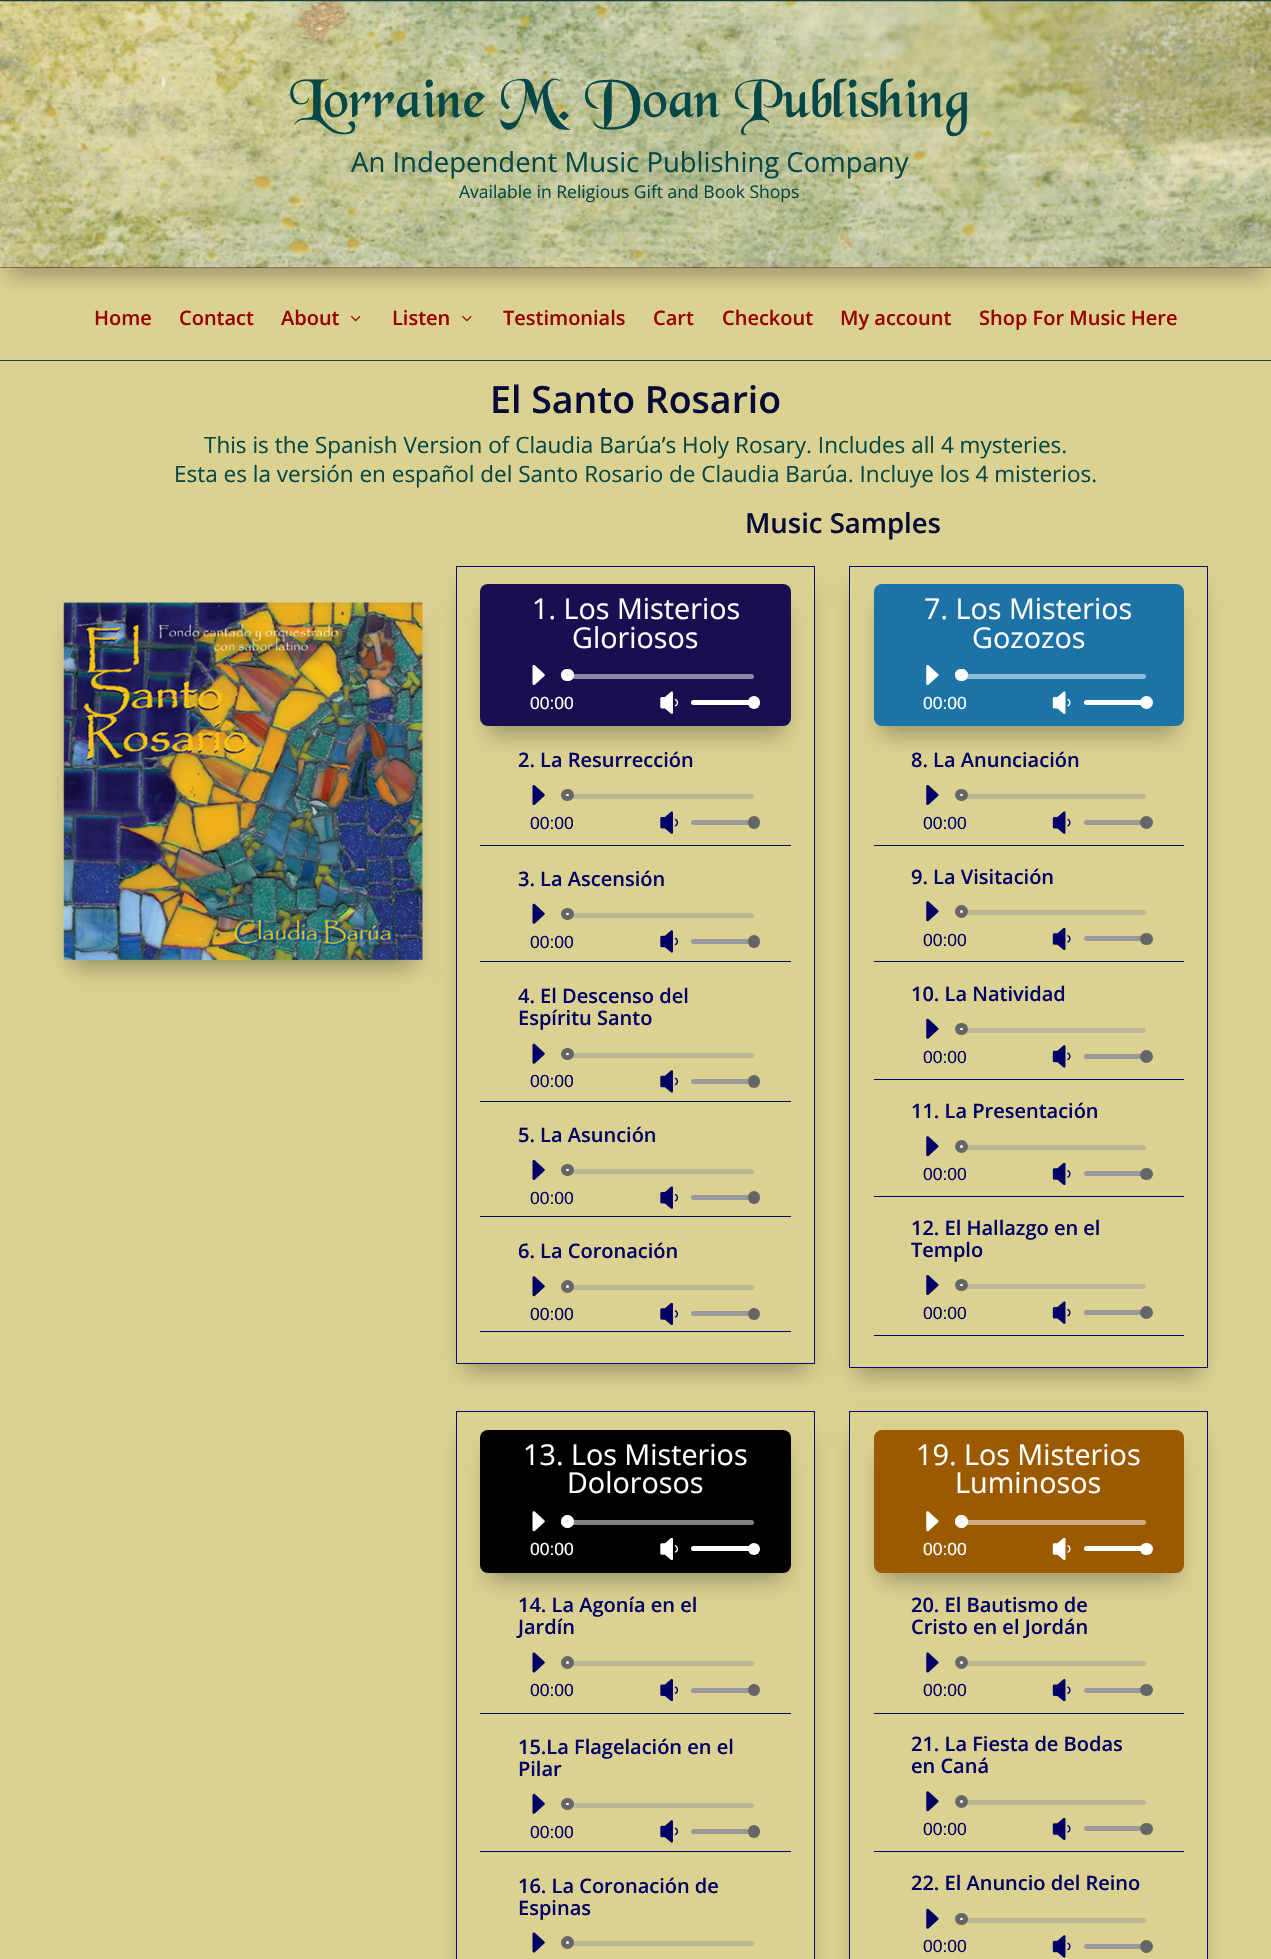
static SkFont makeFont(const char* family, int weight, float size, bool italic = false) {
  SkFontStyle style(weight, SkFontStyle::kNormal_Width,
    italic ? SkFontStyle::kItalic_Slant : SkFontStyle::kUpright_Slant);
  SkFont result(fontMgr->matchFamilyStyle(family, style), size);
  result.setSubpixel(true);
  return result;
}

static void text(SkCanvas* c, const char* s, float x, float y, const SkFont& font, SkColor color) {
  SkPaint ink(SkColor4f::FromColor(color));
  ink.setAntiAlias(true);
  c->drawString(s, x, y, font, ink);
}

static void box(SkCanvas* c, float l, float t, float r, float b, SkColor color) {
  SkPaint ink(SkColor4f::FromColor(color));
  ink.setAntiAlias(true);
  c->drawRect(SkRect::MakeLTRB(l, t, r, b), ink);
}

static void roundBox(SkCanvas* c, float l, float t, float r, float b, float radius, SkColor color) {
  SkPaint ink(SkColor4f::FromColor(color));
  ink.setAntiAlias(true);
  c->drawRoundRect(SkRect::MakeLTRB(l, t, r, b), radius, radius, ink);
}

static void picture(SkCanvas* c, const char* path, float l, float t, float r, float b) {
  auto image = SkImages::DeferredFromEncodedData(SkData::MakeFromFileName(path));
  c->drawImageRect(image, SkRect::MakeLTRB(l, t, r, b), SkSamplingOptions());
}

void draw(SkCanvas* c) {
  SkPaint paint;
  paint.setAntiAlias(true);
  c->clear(0xffdbd292);
  box(c, 0, 0, 1271, 1, 0xff064847);
  box(c, 0, 360, 1271, 361, 0xff064847);
  paint.setColor(0x4d000000);
  paint.setMaskFilter(SkMaskFilter::MakeBlur(kNormal_SkBlurStyle, 11));
  c->drawRect(SkRect::MakeLTRB(8, 24, 1264, 275), paint);
  paint.setMaskFilter(nullptr);
  box(c, 0, 1, 1271, 268, 0xff6d0e0e);
  picture(c, "img_01.png", 0, 1, 1271, 268);
  SkFont face1 = makeFont("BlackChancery", 900, 57.5f);
  text(c, "Lorraine M. Doan Publishing", 290, 117, face1, 0xff064847);
  SkFont face2 = makeFont("Open Sans", 400, 27.5f);
  text(c, "An Independent Music Publishing Company", 351, 172, face2, 0xff064847);
  SkFont face3 = makeFont("Open Sans", 400, 17.5f);
  text(c, "Available in Religious Gift and Book Shops", 459, 198, face3, 0xff064847);
  SkFont face4 = makeFont("Open Sans", 600, 20);
  text(c, "Home", 94, 325, face4, 0xff990000);
  text(c, "Contact", 179, 325, face4, 0xff990000);
  text(c, "About", 281, 325, face4, 0xff990000);
  picture(c, "img_02.png", 351, 316, 361, 322);
  text(c, "Listen", 392, 325, face4, 0xff990000);
  picture(c, "img_03.png", 462, 316, 472, 322);
  text(c, "Testimonials", 503, 325, face4, 0xff990000);
  text(c, "Cart", 653, 325, face4, 0xff990000);
  text(c, "Checkout", 722, 325, face4, 0xff990000);
  text(c, "My account", 840, 325, face4, 0xff990000);
  text(c, "Shop For Music Here", 979, 325, face4, 0xff990000);
  SkFont face5 = makeFont("Open Sans", 600, 37.5f);
  text(c, "El Santo Rosario", 490, 413, face5, 0xff060a37);
  SkFont face6 = makeFont("Open Sans", 400, 22.5f);
  text(c, "This is the Spanish Version of Claudia Barúa’s Holy Rosary. Includes all 4 mysteries.", 204, 453, face6, 0xff064847);
  text(c, "Esta es la versión en español del Santo Rosario de Claudia Barúa. Incluye los 4 misterios.", 174, 482, face6, 0xff064847);
  SkFont face7 = makeFont("Open Sans", 600, 27.5f);
  text(c, "Music Samples", 745, 533, face7, 0xff060a37);
  paint.setMaskFilter(SkMaskFilter::MakeBlur(kNormal_SkBlurStyle, 11));
  c->drawRect(SkRect::MakeLTRB(71, 625, 415, 968), paint);
  paint.setMaskFilter(nullptr);
  picture(c, "img_04.png", 63, 602, 423, 960);
  c->save();
  c->clipPath(SkPathBuilder(SkPathFillType::kEvenOdd).moveTo(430, 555).lineTo(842, 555).lineTo(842, 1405).lineTo(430, 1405).close().moveTo(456, 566).lineTo(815, 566).lineTo(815, 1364).lineTo(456, 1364).close().detach(), true);
  paint.setMaskFilter(SkMaskFilter::MakeBlur(kNormal_SkBlurStyle, 11));
  c->drawRect(SkRect::MakeLTRB(464, 589, 808, 1371), paint);
  paint.setMaskFilter(nullptr);
  c->restore();
  paint.setStyle(SkPaint::kStroke_Style);
  paint.setStrokeWidth(1);
  paint.setColor(0xff030a6b);
  c->drawRect(SkRect::MakeLTRB(456.5f, 566.5f, 814.5f, 1363.5f), paint);
  paint.setStyle(SkPaint::kFill_Style);
  paint.setColor(0x4d000000);
  paint.setMaskFilter(SkMaskFilter::MakeBlur(kNormal_SkBlurStyle, 11));
  c->drawRect(SkRect::MakeLTRB(488, 606, 784, 734), paint);
  paint.setMaskFilter(nullptr);
  roundBox(c, 480, 584, 791, 726, 8, 0xff170f4f);
  SkFont face8 = makeFont("Open Sans", 400, 28.75f);
  text(c, "1. Los Misterios", 532, 619, face8, 0xffffffff);
  text(c, "Gloriosos", 572, 648, face8, 0xffffffff);
  picture(c, "img_05.png", 532, 665, 545, 685);
  roundBox(c, 570, 674, 754, 679, 2.5f, 0xff8b87a7);
  roundBox(c, 561, 669, 574, 681, 6, 0xe6ffffff);
  paint.setStyle(SkPaint::kStroke_Style);
  paint.setStrokeWidth(5);
  paint.setColor(0xe6ffffff);
  c->drawRoundRect(SkRect::MakeLTRB(563.5f, 671.5f, 571.5f, 678.5f), 3.5f, 3.5f, paint);
  SkFont face9 = makeFont("Liberation Sans", 400, 17.5f);
  text(c, "00:00", 530, 709, face9, 0xffffffff);
  picture(c, "img_06.png", 660, 691, 679, 714);
  roundBox(c, 691, 700, 754, 705, 2.5f, 0xffffffff);
  roundBox(c, 748, 696, 760, 709, 6, 0xffffffff);
  box(c, 480, 845, 791, 846, 0xff000066);
  text(c, "2. La Resurrección", 518, 767, face4, 0xff000066);
  picture(c, "img_07.png", 532, 785, 545, 805);
  roundBox(c, 570, 794, 754, 799, 2.5f, 0xffbab696);
  paint.setStyle(SkPaint::kFill_Style);
  c->drawRoundRect(SkRect::MakeLTRB(563.5f, 791.5f, 571.5f, 798.5f), 3.5f, 3.5f, paint);
  paint.setStyle(SkPaint::kStroke_Style);
  paint.setColor(0xff666666);
  c->drawRoundRect(SkRect::MakeLTRB(563.5f, 791.5f, 571.5f, 798.5f), 3.5f, 3.5f, paint);
  text(c, "00:00", 530, 829, face9, 0xff000066);
  picture(c, "img_08.png", 660, 811, 679, 834);
  roundBox(c, 691, 820, 754, 825, 2.5f, 0xff999999);
  roundBox(c, 748, 816, 760, 829, 6, 0xff666666);
  box(c, 480, 961, 791, 962, 0xff000066);
  text(c, "3. La Ascensión", 518, 886, face4, 0xff000066);
  picture(c, "img_09.png", 532, 903, 545, 924);
  roundBox(c, 570, 913, 754, 918, 2.5f, 0xffbab696);
  paint.setStyle(SkPaint::kFill_Style);
  paint.setColor(0xe6ffffff);
  c->drawRoundRect(SkRect::MakeLTRB(563.5f, 910.5f, 571.5f, 917.5f), 3.5f, 3.5f, paint);
  paint.setStyle(SkPaint::kStroke_Style);
  paint.setColor(0xff666666);
  c->drawRoundRect(SkRect::MakeLTRB(563.5f, 910.5f, 571.5f, 917.5f), 3.5f, 3.5f, paint);
  text(c, "00:00", 530, 948, face9, 0xff000066);
  picture(c, "img_10.png", 660, 930, 679, 953);
  roundBox(c, 691, 939, 754, 944, 2.5f, 0xff999999);
  roundBox(c, 748, 935, 760, 948, 6, 0xff666666);
  box(c, 480, 1101, 791, 1102, 0xff000066);
  text(c, "4. El Descenso del", 518, 1003, face4, 0xff000066);
  text(c, "Espíritu Santo", 518, 1025, face4, 0xff000066);
  picture(c, "img_09.png", 532, 1043, 545, 1064);
  roundBox(c, 570, 1053, 754, 1058, 2.5f, 0xffbab696);
  paint.setStyle(SkPaint::kFill_Style);
  paint.setColor(0xe6ffffff);
  c->drawRoundRect(SkRect::MakeLTRB(563.5f, 1050.5f, 571.5f, 1057.5f), 3.5f, 3.5f, paint);
  paint.setStyle(SkPaint::kStroke_Style);
  paint.setColor(0xff666666);
  c->drawRoundRect(SkRect::MakeLTRB(563.5f, 1050.5f, 571.5f, 1057.5f), 3.5f, 3.5f, paint);
  text(c, "00:00", 530, 1087, face9, 0xff000066);
  picture(c, "img_10.png", 660, 1070, 679, 1093);
  roundBox(c, 691, 1079, 754, 1084, 2.5f, 0xff999999);
  roundBox(c, 748, 1075, 760, 1088, 6, 0xff666666);
  box(c, 480, 1216, 791, 1217, 0xff000066);
  text(c, "5. La Asunción", 518, 1142, face4, 0xff000066);
  picture(c, "img_07.png", 532, 1160, 545, 1180);
  roundBox(c, 570, 1169, 754, 1174, 2.5f, 0xffbab696);
  paint.setStyle(SkPaint::kFill_Style);
  paint.setColor(0xe6ffffff);
  c->drawRoundRect(SkRect::MakeLTRB(563.5f, 1166.5f, 571.5f, 1173.5f), 3.5f, 3.5f, paint);
  paint.setStyle(SkPaint::kStroke_Style);
  paint.setColor(0xff666666);
  c->drawRoundRect(SkRect::MakeLTRB(563.5f, 1166.5f, 571.5f, 1173.5f), 3.5f, 3.5f, paint);
  text(c, "00:00", 530, 1204, face9, 0xff000066);
  picture(c, "img_08.png", 660, 1186, 679, 1209);
  roundBox(c, 691, 1195, 754, 1200, 2.5f, 0xff999999);
  roundBox(c, 748, 1191, 760, 1204, 6, 0xff666666);
  box(c, 480, 1331, 791, 1332, 0xff000066);
  text(c, "6. La Coronación", 518, 1258, face4, 0xff000066);
  picture(c, "img_11.png", 532, 1276, 545, 1297);
  roundBox(c, 570, 1285, 754, 1290, 2.5f, 0xffbab696);
  paint.setStyle(SkPaint::kFill_Style);
  paint.setColor(0xe6ffffff);
  c->drawCircle(567.5f, 1286.5f, 4, paint);
  paint.setStyle(SkPaint::kStroke_Style);
  paint.setColor(0xff666666);
  c->drawCircle(567.5f, 1286.5f, 4, paint);
  text(c, "00:00", 530, 1320, face9, 0xff000066);
  picture(c, "img_12.png", 660, 1303, 679, 1325);
  roundBox(c, 691, 1311, 754, 1316, 2.5f, 0xff999999);
  paint.setStyle(SkPaint::kFill_Style);
  c->drawCircle(754, 1314, 6, paint);
  c->save();
  c->clipPath(SkPathBuilder(SkPathFillType::kEvenOdd).moveTo(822, 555).lineTo(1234, 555).lineTo(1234, 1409).lineTo(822, 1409).close().moveTo(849, 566).lineTo(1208, 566).lineTo(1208, 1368).lineTo(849, 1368).close().detach(), true);
  paint.setColor(0x4d000000);
  paint.setMaskFilter(SkMaskFilter::MakeBlur(kNormal_SkBlurStyle, 11));
  c->drawRect(SkRect::MakeLTRB(856, 589, 1200, 1375), paint);
  paint.setMaskFilter(nullptr);
  c->restore();
  paint.setStyle(SkPaint::kStroke_Style);
  paint.setStrokeWidth(1);
  paint.setColor(0xff030a6b);
  c->drawRect(SkRect::MakeLTRB(849.5f, 566.5f, 1207.5f, 1367.5f), paint);
  paint.setStyle(SkPaint::kFill_Style);
  paint.setColor(0x4d000000);
  paint.setMaskFilter(SkMaskFilter::MakeBlur(kNormal_SkBlurStyle, 11));
  c->drawRect(SkRect::MakeLTRB(881, 606, 1176, 734), paint);
  paint.setMaskFilter(nullptr);
  roundBox(c, 874, 584, 1184, 726, 8, 0xff1d73a5);
  text(c, "7. Los Misterios", 924, 619, face8, 0xffffffff);
  text(c, "Gozozos", 972, 648, face8, 0xffffffff);
  picture(c, "img_13.png", 926, 665, 939, 685);
  roundBox(c, 964, 674, 1146, 679, 2.5f, 0xff8eb9d2);
  roundBox(c, 955, 669, 968, 681, 6, 0xe6ffffff);
  paint.setStyle(SkPaint::kStroke_Style);
  paint.setStrokeWidth(5);
  paint.setColor(0xe6ffffff);
  c->drawRoundRect(SkRect::MakeLTRB(957.5f, 671.5f, 965.5f, 678.5f), 3.5f, 3.5f, paint);
  text(c, "00:00", 923, 709, face9, 0xffffffff);
  picture(c, "img_14.png", 1052, 691, 1071, 714);
  roundBox(c, 1084, 700, 1146, 705, 2.5f, 0xffffffff);
  paint.setStyle(SkPaint::kFill_Style);
  paint.setColor(0xffffffff);
  c->drawCircle(1146.5f, 702.5f, 6.5f, paint);
  box(c, 874, 845, 1184, 846, 0xff000066);
  text(c, "8. La Anunciación", 911, 767, face4, 0xff000066);
  picture(c, "img_15.png", 926, 785, 939, 805);
  roundBox(c, 964, 794, 1146, 799, 2.5f, 0xffbab696);
  paint.setColor(0xe6ffffff);
  c->drawRoundRect(SkRect::MakeLTRB(957.5f, 791.5f, 965.5f, 798.5f), 3.5f, 3.5f, paint);
  paint.setStyle(SkPaint::kStroke_Style);
  paint.setColor(0xff666666);
  c->drawRoundRect(SkRect::MakeLTRB(957.5f, 791.5f, 965.5f, 798.5f), 3.5f, 3.5f, paint);
  text(c, "00:00", 923, 829, face9, 0xff000066);
  picture(c, "img_16.png", 1052, 811, 1071, 834);
  roundBox(c, 1084, 820, 1146, 825, 2.5f, 0xff999999);
  paint.setStyle(SkPaint::kFill_Style);
  c->drawCircle(1146.5f, 822.5f, 6.5f, paint);
  box(c, 874, 961, 1184, 962, 0xff000066);
  text(c, "9. La Visitación", 911, 884, face4, 0xff000066);
  picture(c, "img_17.png", 926, 901, 939, 922);
  roundBox(c, 964, 910, 1146, 915, 2.5f, 0xffbab696);
  paint.setColor(0xe6ffffff);
  c->drawCircle(961.5f, 911.5f, 4, paint);
  paint.setStyle(SkPaint::kStroke_Style);
  paint.setColor(0xff666666);
  c->drawCircle(961.5f, 911.5f, 4, paint);
  text(c, "00:00", 923, 946, face9, 0xff000066);
  picture(c, "img_18.png", 1052, 928, 1071, 950);
  roundBox(c, 1084, 936, 1146, 941, 2.5f, 0xff999999);
  roundBox(c, 1140, 933, 1153, 945, 6, 0xff666666);
  box(c, 874, 1079, 1184, 1080, 0xff000066);
  text(c, "10. La Natividad", 911, 1001, face4, 0xff000066);
  picture(c, "img_19.png", 926, 1018, 939, 1039);
  roundBox(c, 964, 1028, 1146, 1033, 2.5f, 0xffbab696);
  paint.setStyle(SkPaint::kFill_Style);
  paint.setColor(0xe6ffffff);
  c->drawRoundRect(SkRect::MakeLTRB(957.5f, 1025.5f, 965.5f, 1032.5f), 3.5f, 3.5f, paint);
  paint.setStyle(SkPaint::kStroke_Style);
  paint.setColor(0xff666666);
  c->drawRoundRect(SkRect::MakeLTRB(957.5f, 1025.5f, 965.5f, 1032.5f), 3.5f, 3.5f, paint);
  text(c, "00:00", 923, 1063, face9, 0xff000066);
  picture(c, "img_20.png", 1052, 1045, 1071, 1068);
  roundBox(c, 1084, 1054, 1146, 1059, 2.5f, 0xff999999);
  paint.setStyle(SkPaint::kFill_Style);
  c->drawCircle(1146.5f, 1056.5f, 6.5f, paint);
  box(c, 874, 1196, 1184, 1197, 0xff000066);
  text(c, "11. La Presentación", 911, 1118, face4, 0xff000066);
  picture(c, "img_17.png", 926, 1136, 939, 1157);
  roundBox(c, 964, 1145, 1146, 1150, 2.5f, 0xffbab696);
  paint.setColor(0xe6ffffff);
  c->drawCircle(961.5f, 1146.5f, 4, paint);
  paint.setStyle(SkPaint::kStroke_Style);
  paint.setColor(0xff666666);
  c->drawCircle(961.5f, 1146.5f, 4, paint);
  text(c, "00:00", 923, 1180, face9, 0xff000066);
  picture(c, "img_18.png", 1052, 1163, 1071, 1185);
  roundBox(c, 1084, 1171, 1146, 1176, 2.5f, 0xff999999);
  roundBox(c, 1140, 1168, 1153, 1180, 6, 0xff666666);
  box(c, 874, 1335, 1184, 1336, 0xff000066);
  text(c, "12. El Hallazgo en el", 911, 1235, face4, 0xff000066);
  text(c, "Templo", 911, 1257, face4, 0xff000066);
  picture(c, "img_15.png", 926, 1275, 939, 1295);
  roundBox(c, 964, 1284, 1146, 1289, 2.5f, 0xffbab696);
  paint.setStyle(SkPaint::kFill_Style);
  paint.setColor(0xe6ffffff);
  c->drawRoundRect(SkRect::MakeLTRB(957.5f, 1281.5f, 965.5f, 1288.5f), 3.5f, 3.5f, paint);
  paint.setStyle(SkPaint::kStroke_Style);
  paint.setColor(0xff666666);
  c->drawRoundRect(SkRect::MakeLTRB(957.5f, 1281.5f, 965.5f, 1288.5f), 3.5f, 3.5f, paint);
  text(c, "00:00", 923, 1319, face9, 0xff000066);
  picture(c, "img_16.png", 1052, 1301, 1071, 1324);
  roundBox(c, 1084, 1310, 1146, 1315, 2.5f, 0xff999999);
  paint.setStyle(SkPaint::kFill_Style);
  c->drawCircle(1146.5f, 1312.5f, 6.5f, paint);
  c->save();
  c->clipPath(SkPathBuilder(SkPathFillType::kEvenOdd).moveTo(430, 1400).lineTo(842, 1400).lineTo(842, 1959).lineTo(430, 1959).close().moveTo(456, 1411).lineTo(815, 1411).lineTo(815, 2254).lineTo(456, 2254).close().detach(), true);
  paint.setColor(0x4d000000);
  paint.setMaskFilter(SkMaskFilter::MakeBlur(kNormal_SkBlurStyle, 11));
  c->drawRect(SkRect::MakeLTRB(464, 1434, 808, 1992), paint);
  paint.setMaskFilter(nullptr);
  c->restore();
  paint.setStyle(SkPaint::kStroke_Style);
  paint.setStrokeWidth(1);
  paint.setColor(0xff030a6b);
  c->drawRect(SkRect::MakeLTRB(456.5f, 1411.5f, 814.5f, 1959.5f), paint);
  paint.setStyle(SkPaint::kFill_Style);
  paint.setColor(0x4d000000);
  paint.setMaskFilter(SkMaskFilter::MakeBlur(kNormal_SkBlurStyle, 11));
  c->drawRect(SkRect::MakeLTRB(488, 1453, 784, 1580), paint);
  paint.setMaskFilter(nullptr);
  roundBox(c, 480, 1430, 791, 1573, 8, 0xff000000);
  text(c, "13. Los Misterios", 523, 1465, face8, 0xffffffff);
  text(c, "Dolorosos", 567, 1493, face8, 0xffffffff);
  picture(c, "img_21.png", 532, 1511, 545, 1532);
  roundBox(c, 570, 1520, 754, 1525, 2.5f, 0xff808080);
  paint.setColor(0xe6ffffff);
  c->drawCircle(567.5f, 1521.5f, 6.5f, paint);
  paint.setStyle(SkPaint::kStroke_Style);
  paint.setStrokeWidth(5);
  c->drawCircle(567.5f, 1521.5f, 4, paint);
  text(c, "00:00", 530, 1555, face9, 0xffffffff);
  picture(c, "img_22.png", 660, 1538, 679, 1560);
  roundBox(c, 691, 1546, 754, 1551, 2.5f, 0xffffffff);
  paint.setStyle(SkPaint::kFill_Style);
  paint.setColor(0xffffffff);
  c->drawCircle(754, 1549, 6, paint);
  box(c, 480, 1713, 791, 1714, 0xff000066);
  text(c, "14. La Agonía en el", 518, 1612, face4, 0xff000066);
  text(c, "Jardín", 518, 1634, face4, 0xff000066);
  picture(c, "img_23.png", 532, 1652, 545, 1673);
  roundBox(c, 570, 1661, 754, 1666, 2.5f, 0xffbab696);
  paint.setColor(0xe6ffffff);
  c->drawCircle(567.5f, 1662.5f, 4, paint);
  paint.setStyle(SkPaint::kStroke_Style);
  paint.setColor(0xff666666);
  c->drawCircle(567.5f, 1662.5f, 4, paint);
  text(c, "00:00", 530, 1696, face9, 0xff000066);
  picture(c, "img_24.png", 660, 1679, 679, 1701);
  roundBox(c, 691, 1688, 754, 1693, 2.5f, 0xff999999);
  paint.setStyle(SkPaint::kFill_Style);
  c->drawCircle(754, 1690, 6, paint);
  box(c, 480, 1851, 791, 1852, 0xff000066);
  text(c, "15.La Flagelación en el", 518, 1754, face4, 0xff000066);
  text(c, "Pilar", 518, 1776, face4, 0xff000066);
  picture(c, "img_09.png", 532, 1793, 545, 1814);
  roundBox(c, 570, 1803, 754, 1808, 2.5f, 0xffbab696);
  paint.setColor(0xe6ffffff);
  c->drawRoundRect(SkRect::MakeLTRB(563.5f, 1800.5f, 571.5f, 1807.5f), 3.5f, 3.5f, paint);
  paint.setStyle(SkPaint::kStroke_Style);
  paint.setColor(0xff666666);
  c->drawRoundRect(SkRect::MakeLTRB(563.5f, 1800.5f, 571.5f, 1807.5f), 3.5f, 3.5f, paint);
  text(c, "00:00", 530, 1838, face9, 0xff000066);
  picture(c, "img_10.png", 660, 1820, 679, 1843);
  roundBox(c, 691, 1829, 754, 1834, 2.5f, 0xff999999);
  roundBox(c, 748, 1825, 760, 1838, 6, 0xff666666);
  text(c, "16. La Coronación de", 518, 1893, face4, 0xff000066);
  text(c, "Espinas", 518, 1915, face4, 0xff000066);
  picture(c, "img_23.png", 532, 1932, 545, 1953);
  roundBox(c, 570, 1941, 754, 1946, 2.5f, 0xffbab696);
  paint.setStyle(SkPaint::kFill_Style);
  paint.setColor(0xe6ffffff);
  c->drawCircle(567.5f, 1942.5f, 4, paint);
  paint.setStyle(SkPaint::kStroke_Style);
  paint.setColor(0xff666666);
  c->drawCircle(567.5f, 1942.5f, 4, paint);
  c->save();
  c->clipPath(SkPathBuilder(SkPathFillType::kEvenOdd).moveTo(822, 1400).lineTo(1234, 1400).lineTo(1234, 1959).lineTo(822, 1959).close().moveTo(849, 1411).lineTo(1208, 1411).lineTo(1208, 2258).lineTo(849, 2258).close().detach(), true);
  paint.setStyle(SkPaint::kFill_Style);
  paint.setColor(0x4d000000);
  paint.setMaskFilter(SkMaskFilter::MakeBlur(kNormal_SkBlurStyle, 11));
  c->drawRect(SkRect::MakeLTRB(856, 1434, 1200, 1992), paint);
  paint.setMaskFilter(nullptr);
  c->restore();
  paint.setStyle(SkPaint::kStroke_Style);
  paint.setStrokeWidth(1);
  paint.setColor(0xff030a6b);
  c->drawRect(SkRect::MakeLTRB(849.5f, 1411.5f, 1207.5f, 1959.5f), paint);
  paint.setStyle(SkPaint::kFill_Style);
  paint.setColor(0x4d000000);
  paint.setMaskFilter(SkMaskFilter::MakeBlur(kNormal_SkBlurStyle, 11));
  c->drawRect(SkRect::MakeLTRB(881, 1453, 1176, 1580), paint);
  paint.setMaskFilter(nullptr);
  roundBox(c, 874, 1430, 1184, 1573, 8, 0xff9b5a00);
  text(c, "19. Los Misterios", 916, 1465, face8, 0xffffffff);
  text(c, "Luminosos", 955, 1493, face8, 0xffffffff);
  picture(c, "img_25.png", 926, 1511, 939, 1532);
  roundBox(c, 964, 1520, 1146, 1525, 2.5f, 0xffcdad80);
  paint.setColor(0xe6ffffff);
  c->drawCircle(961.5f, 1521.5f, 6.5f, paint);
  paint.setStyle(SkPaint::kStroke_Style);
  paint.setStrokeWidth(5);
  c->drawCircle(961.5f, 1521.5f, 4, paint);
  text(c, "00:00", 923, 1555, face9, 0xffffffff);
  picture(c, "img_26.png", 1052, 1538, 1071, 1560);
  roundBox(c, 1084, 1546, 1146, 1551, 2.5f, 0xffffffff);
  roundBox(c, 1140, 1543, 1153, 1555, 6, 0xffffffff);
  box(c, 874, 1713, 1184, 1714, 0xff000066);
  text(c, "20. El Bautismo de", 911, 1612, face4, 0xff000066);
  text(c, "Cristo en el Jordán", 911, 1634, face4, 0xff000066);
  picture(c, "img_27.png", 926, 1652, 939, 1673);
  roundBox(c, 964, 1661, 1146, 1666, 2.5f, 0xffbab696);
  paint.setStyle(SkPaint::kFill_Style);
  c->drawCircle(961.5f, 1662.5f, 4, paint);
  paint.setStyle(SkPaint::kStroke_Style);
  paint.setColor(0xff666666);
  c->drawCircle(961.5f, 1662.5f, 4, paint);
  text(c, "00:00", 923, 1696, face9, 0xff000066);
  picture(c, "img_28.png", 1052, 1679, 1071, 1701);
  roundBox(c, 1084, 1688, 1146, 1693, 2.5f, 0xff999999);
  roundBox(c, 1140, 1684, 1153, 1696, 6, 0xff666666);
  box(c, 874, 1851, 1184, 1852, 0xff000066);
  text(c, "21. La Fiesta de Bodas", 911, 1751, face4, 0xff000066);
  text(c, "en Caná", 911, 1773, face4, 0xff000066);
  picture(c, "img_17.png", 926, 1791, 939, 1812);
  roundBox(c, 964, 1800, 1146, 1805, 2.5f, 0xffbab696);
  paint.setStyle(SkPaint::kFill_Style);
  paint.setColor(0xe6ffffff);
  c->drawCircle(961.5f, 1801.5f, 4, paint);
  paint.setStyle(SkPaint::kStroke_Style);
  paint.setColor(0xff666666);
  c->drawCircle(961.5f, 1801.5f, 4, paint);
  text(c, "00:00", 923, 1835, face9, 0xff000066);
  picture(c, "img_18.png", 1052, 1818, 1071, 1840);
  roundBox(c, 1084, 1826, 1146, 1831, 2.5f, 0xff999999);
  roundBox(c, 1140, 1823, 1153, 1835, 6, 0xff666666);
  text(c, "22. El Anuncio del Reino", 911, 1890, face4, 0xff000066);
  picture(c, "img_19.png", 926, 1908, 939, 1929);
  roundBox(c, 964, 1918, 1146, 1923, 2.5f, 0xffbab696);
  paint.setStyle(SkPaint::kFill_Style);
  paint.setColor(0xe6ffffff);
  c->drawRoundRect(SkRect::MakeLTRB(957.5f, 1915.5f, 965.5f, 1922.5f), 3.5f, 3.5f, paint);
  paint.setStyle(SkPaint::kStroke_Style);
  paint.setColor(0xff666666);
  c->drawRoundRect(SkRect::MakeLTRB(957.5f, 1915.5f, 965.5f, 1922.5f), 3.5f, 3.5f, paint);
  text(c, "00:00", 923, 1952, face9, 0xff000066);
  picture(c, "img_20.png", 1052, 1935, 1071, 1958);
  roundBox(c, 1084, 1944, 1146, 1949, 2.5f, 0xff999999);
  paint.setStyle(SkPaint::kFill_Style);
  c->drawCircle(1146.5f, 1946.5f, 6.5f, paint);
}
